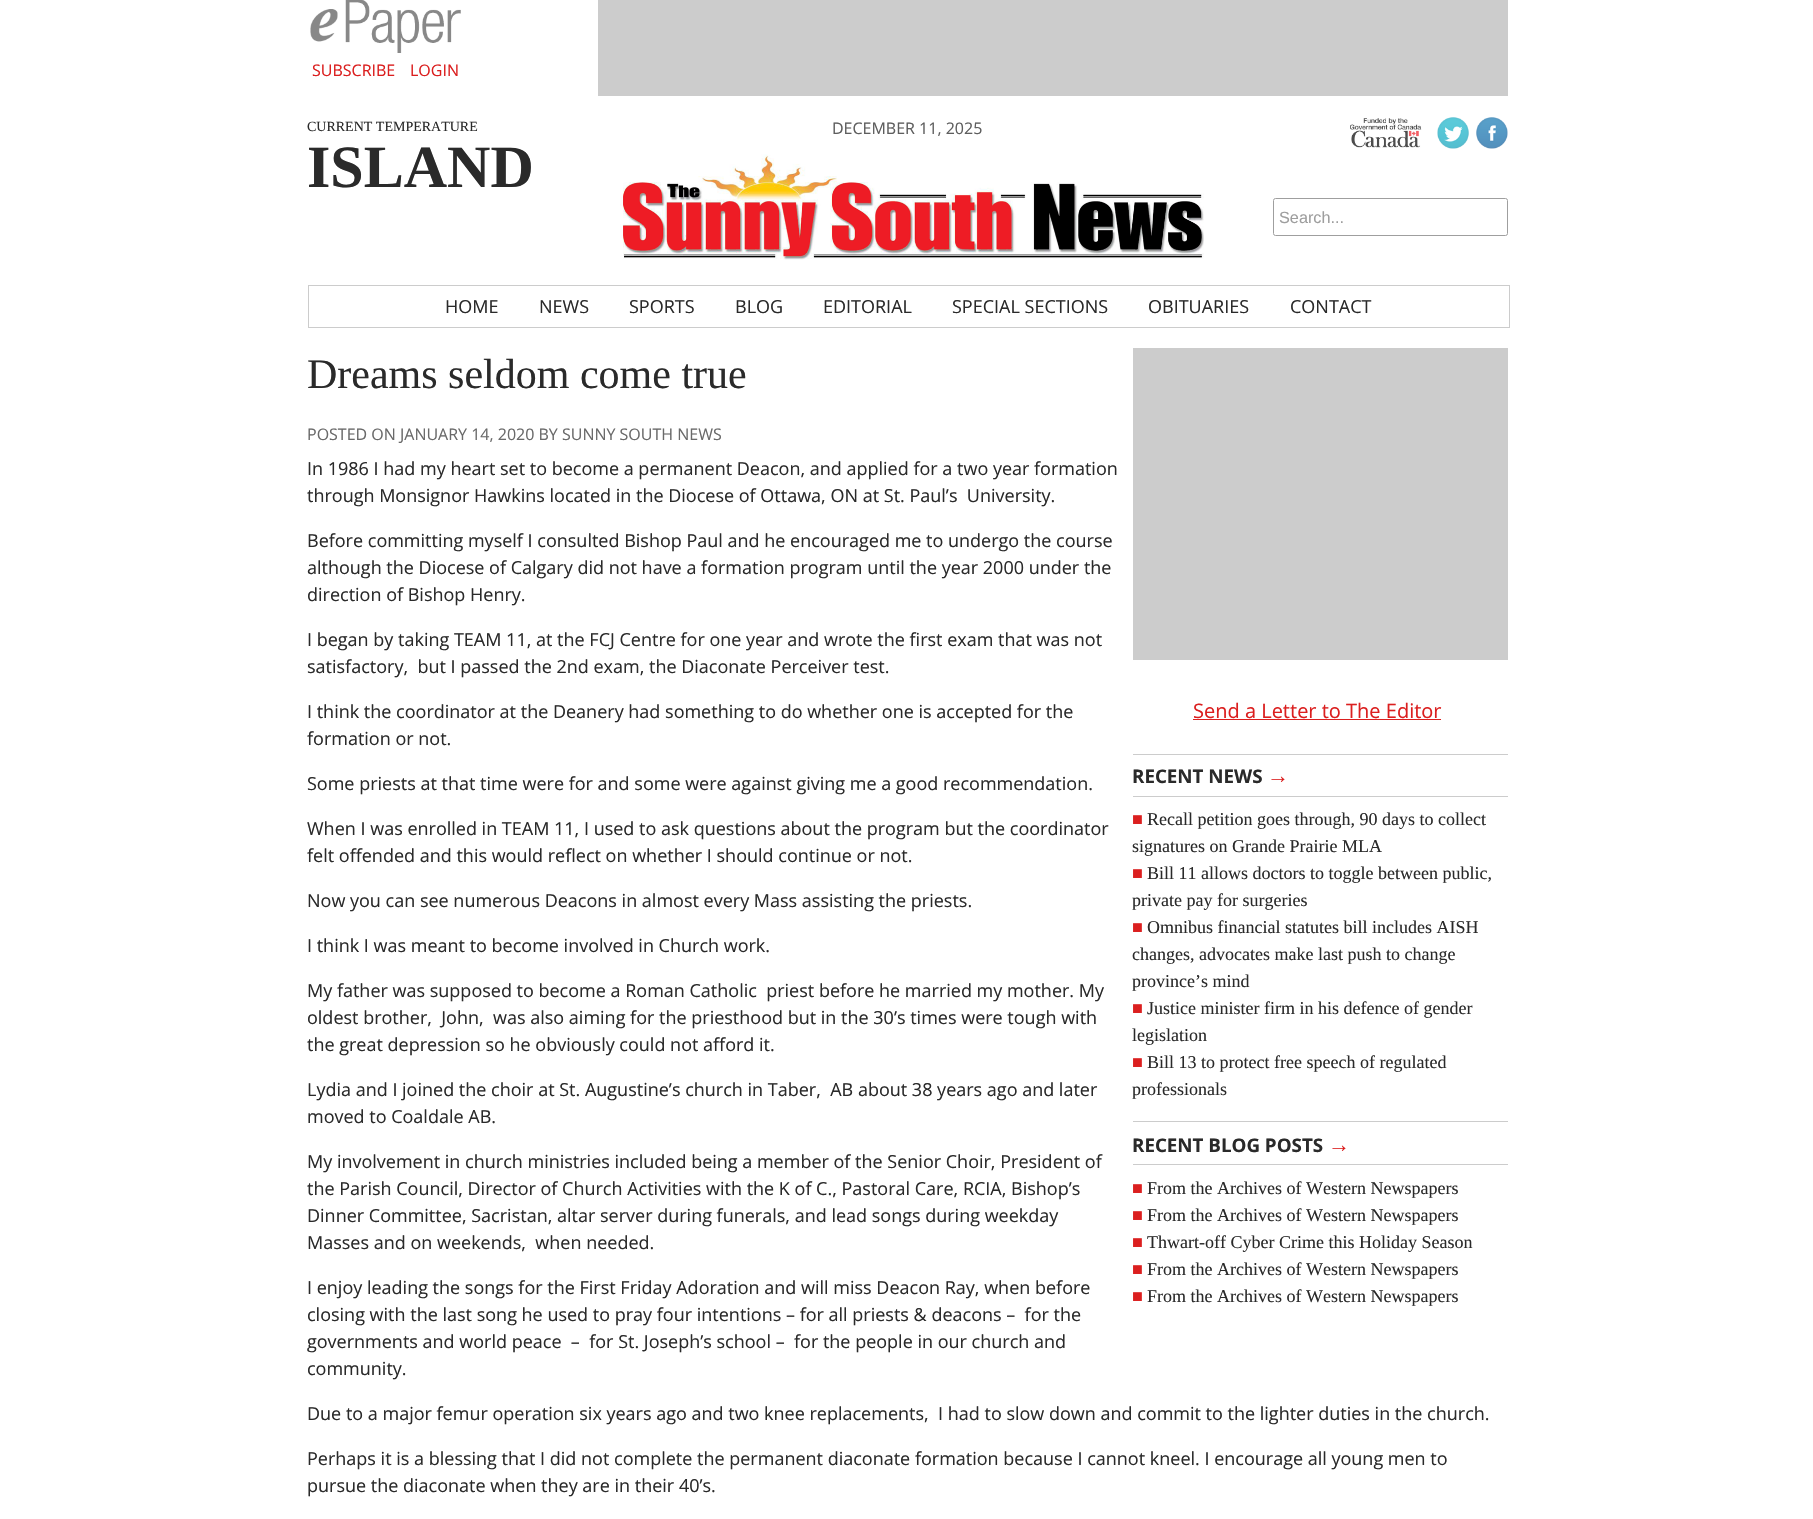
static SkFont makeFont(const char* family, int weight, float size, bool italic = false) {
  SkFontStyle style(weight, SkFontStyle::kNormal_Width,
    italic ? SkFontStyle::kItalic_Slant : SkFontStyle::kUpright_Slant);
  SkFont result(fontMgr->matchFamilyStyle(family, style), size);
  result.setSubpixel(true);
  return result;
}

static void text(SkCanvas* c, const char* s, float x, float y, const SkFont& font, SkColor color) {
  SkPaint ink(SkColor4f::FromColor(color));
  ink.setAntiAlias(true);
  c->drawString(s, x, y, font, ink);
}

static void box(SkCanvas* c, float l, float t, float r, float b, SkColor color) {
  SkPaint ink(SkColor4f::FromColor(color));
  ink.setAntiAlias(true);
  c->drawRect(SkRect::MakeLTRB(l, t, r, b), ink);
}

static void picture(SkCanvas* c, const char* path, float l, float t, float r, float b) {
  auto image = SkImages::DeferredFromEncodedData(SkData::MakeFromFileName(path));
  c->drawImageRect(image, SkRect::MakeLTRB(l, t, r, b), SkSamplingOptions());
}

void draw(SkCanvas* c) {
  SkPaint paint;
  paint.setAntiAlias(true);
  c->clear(0xffffffff);
  picture(c, "img_01.png", 310, 0, 461, 53);
  SkFont face1 = makeFont("Open Sans", 400, 16);
  text(c, "SUBSCRIBE", 312, 76, face1, 0xffdb1f1f);
  text(c, "LOGIN", 410, 76, face1, 0xffdb1f1f);
  box(c, 598, 0, 1508, 96, 0xffcccccc);
  SkFont face2 = makeFont("Liberation Serif", 400, 14);
  text(c, "CURRENT TEMPERATURE", 307, 131, face2, 0xff2a2a2a);
  SkFont face3 = makeFont("Liberation Serif", 700, 60);
  text(c, "ISLAND", 307, 187, face3, 0xff2a2a2a);
  text(c, "DECEMBER 11, 2025", 832, 134, face1, 0xff5e5e5e);
  picture(c, "img_02.png", 620, 154, 1204, 260);
  picture(c, "img_03.png", 1350, 118, 1422, 148);
  picture(c, "img_04.png", 1437, 117, 1469, 149);
  picture(c, "img_05.png", 1476, 117, 1508, 149);
  paint.setStyle(SkPaint::kStroke_Style);
  paint.setStrokeWidth(1);
  paint.setColor(0xff9f9f9f);
  c->drawRoundRect(SkRect::MakeLTRB(1273.5f, 198.5f, 1507.5f, 235.5f), 2, 2, paint);
  SkFont face4 = makeFont("Liberation Sans", 400, 16.25f);
  text(c, "Search...", 1279, 223, face4, 0xff9e9e9e);
  paint.setColor(0xffcccccc);
  c->drawRect(SkRect::MakeLTRB(308.5f, 285.5f, 1509.5f, 327.5f), paint);
  SkFont face5 = makeFont("Open Sans", 400, 18);
  text(c, "HOME", 445, 313, face5, 0xff2a2a2a);
  text(c, "NEWS", 539, 313, face5, 0xff2a2a2a);
  text(c, "SPORTS", 629, 313, face5, 0xff2a2a2a);
  text(c, "BLOG", 735, 313, face5, 0xff2a2a2a);
  text(c, "EDITORIAL", 823, 313, face5, 0xff2a2a2a);
  text(c, "SPECIAL SECTIONS", 952, 313, face5, 0xff2a2a2a);
  text(c, "OBITUARIES", 1148, 313, face5, 0xff2a2a2a);
  text(c, "CONTACT", 1290, 313, face5, 0xff2a2a2a);
  SkFont face6 = makeFont("Liberation Serif", 400, 42);
  text(c, "Dreams seldom come true", 307, 388, face6, 0xff2a2a2a);
  text(c, "POSTED ON JANUARY 14, 2020 BY SUNNY SOUTH NEWS", 307, 440, face1, 0xff6a6a6a);
  text(c, "In 1986 I had my heart set to become a permanent Deacon, and applied for a two year formation", 307, 475, face5, 0xff2a2a2a);
  text(c, "through Monsignor Hawkins located in the Diocese of Ottawa, ON at St. Paul’s  University.", 307, 502, face5, 0xff2a2a2a);
  text(c, "Before committing myself I consulted Bishop Paul and he encouraged me to undergo the course", 307, 547, face5, 0xff2a2a2a);
  text(c, "although the Diocese of Calgary did not have a formation program until the year 2000 under the", 307, 574, face5, 0xff2a2a2a);
  text(c, "direction of Bishop Henry.", 307, 601, face5, 0xff2a2a2a);
  text(c, "I began by taking TEAM 11, at the FCJ Centre for one year and wrote the first exam that was not", 307, 646, face5, 0xff2a2a2a);
  text(c, "satisfactory,  but I passed the 2nd exam, the Diaconate Perceiver test.", 307, 673, face5, 0xff2a2a2a);
  text(c, "I think the coordinator at the Deanery had something to do whether one is accepted for the", 307, 718, face5, 0xff2a2a2a);
  text(c, "formation or not.", 307, 745, face5, 0xff2a2a2a);
  text(c, "Some priests at that time were for and some were against giving me a good recommendation.", 307, 790, face5, 0xff2a2a2a);
  text(c, "When I was enrolled in TEAM 11, I used to ask questions about the program but the coordinator", 307, 835, face5, 0xff2a2a2a);
  text(c, "felt offended and this would reflect on whether I should continue or not.", 307, 862, face5, 0xff2a2a2a);
  text(c, "Now you can see numerous Deacons in almost every Mass assisting the priests.", 307, 907, face5, 0xff2a2a2a);
  text(c, "I think I was meant to become involved in Church work.", 307, 952, face5, 0xff2a2a2a);
  text(c, "My father was supposed to become a Roman Catholic  priest before he married my mother. My", 307, 997, face5, 0xff2a2a2a);
  text(c, "oldest brother,  John,  was also aiming for the priesthood but in the 30’s times were tough with", 307, 1024, face5, 0xff2a2a2a);
  text(c, "the great depression so he obviously could not afford it.", 307, 1051, face5, 0xff2a2a2a);
  text(c, "Lydia and I joined the choir at St. Augustine’s church in Taber,  AB about 38 years ago and later", 307, 1096, face5, 0xff2a2a2a);
  text(c, "moved to Coaldale AB.", 307, 1123, face5, 0xff2a2a2a);
  text(c, "My involvement in church ministries included being a member of the Senior Choir, President of", 307, 1168, face5, 0xff2a2a2a);
  text(c, "the Parish Council, Director of Church Activities with the K of C., Pastoral Care, RCIA, Bishop’s", 307, 1195, face5, 0xff2a2a2a);
  text(c, "Dinner Committee, Sacristan, altar server during funerals, and lead songs during weekday", 307, 1222, face5, 0xff2a2a2a);
  text(c, "Masses and on weekends,  when needed.", 307, 1249, face5, 0xff2a2a2a);
  text(c, "I enjoy leading the songs for the First Friday Adoration and will miss Deacon Ray, when before", 307, 1294, face5, 0xff2a2a2a);
  text(c, "closing with the last song he used to pray four intentions – for all priests & deacons –  for the", 307, 1321, face5, 0xff2a2a2a);
  text(c, "governments and world peace  –  for St. Joseph’s school –  for the people in our church and", 307, 1348, face5, 0xff2a2a2a);
  text(c, "community.", 307, 1375, face5, 0xff2a2a2a);
  text(c, "Due to a major femur operation six years ago and two knee replacements,  I had to slow down and commit to the lighter duties in the church.", 307, 1420, face5, 0xff2a2a2a);
  text(c, "Perhaps it is a blessing that I did not complete the permanent diaconate formation because I cannot kneel. I encourage all young men to", 307, 1465, face5, 0xff2a2a2a);
  text(c, "pursue the diaconate when they are in their 40’s.", 307, 1492, face5, 0xff2a2a2a);
  box(c, 1133, 348, 1508, 660, 0xffcccccc);
  SkFont face7 = makeFont("Open Sans", 400, 20);
  text(c, "Send a Letter to The Editor", 1193, 718, face7, 0xffdb1f1f);
  box(c, 1193, 719, 1441, 720, 0xffdb1f1f);
  box(c, 1133, 754, 1508, 755, 0xffcccccc);
  box(c, 1133, 796, 1508, 797, 0xffcccccc);
  SkFont face8 = makeFont("Open Sans", 700, 18.75f);
  text(c, "RECENT NEWS", 1132, 783, face8, 0xff2a2a2a);
  SkFont face9 = makeFont("Liberation Sans", 700, 22);
  text(c, "→", 1267, 783, face9, 0xffdb1f1f);
  SkFont face10 = makeFont("Liberation Serif", 400, 18);
  text(c, "■", 1132, 825, face10, 0xffdb1f1f);
  text(c, "Recall petition goes through, 90 days to collect", 1147, 825, face10, 0xff2a2a2a);
  text(c, "signatures on Grande Prairie MLA", 1132, 852, face10, 0xff2a2a2a);
  text(c, "■", 1132, 879, face10, 0xffdb1f1f);
  text(c, "Bill 11 allows doctors to toggle between public,", 1147, 879, face10, 0xff2a2a2a);
  text(c, "private pay for surgeries", 1132, 906, face10, 0xff2a2a2a);
  text(c, "■", 1132, 933, face10, 0xffdb1f1f);
  text(c, "Omnibus financial statutes bill includes AISH", 1147, 933, face10, 0xff2a2a2a);
  text(c, "changes, advocates make last push to change", 1132, 960, face10, 0xff2a2a2a);
  text(c, "province’s mind", 1132, 987, face10, 0xff2a2a2a);
  text(c, "■", 1132, 1014, face10, 0xffdb1f1f);
  text(c, "Justice minister firm in his defence of gender", 1147, 1014, face10, 0xff2a2a2a);
  text(c, "legislation", 1132, 1041, face10, 0xff2a2a2a);
  text(c, "■", 1132, 1068, face10, 0xffdb1f1f);
  text(c, "Bill 13 to protect free speech of regulated", 1147, 1068, face10, 0xff2a2a2a);
  text(c, "professionals", 1132, 1095, face10, 0xff2a2a2a);
  box(c, 1133, 1121, 1508, 1122, 0xffcccccc);
  box(c, 1133, 1164, 1508, 1165, 0xffcccccc);
  text(c, "RECENT BLOG POSTS", 1132, 1152, face8, 0xff2a2a2a);
  text(c, "→", 1328, 1152, face9, 0xffdb1f1f);
  text(c, "■", 1132, 1194, face10, 0xffdb1f1f);
  text(c, "From the Archives of Western Newspapers", 1147, 1194, face10, 0xff2a2a2a);
  text(c, "■", 1132, 1221, face10, 0xffdb1f1f);
  text(c, "From the Archives of Western Newspapers", 1147, 1221, face10, 0xff2a2a2a);
  text(c, "■", 1132, 1248, face10, 0xffdb1f1f);
  text(c, "Thwart-off Cyber Crime this Holiday Season", 1147, 1248, face10, 0xff2a2a2a);
  text(c, "■", 1132, 1275, face10, 0xffdb1f1f);
  text(c, "From the Archives of Western Newspapers", 1147, 1275, face10, 0xff2a2a2a);
  text(c, "■", 1132, 1302, face10, 0xffdb1f1f);
  text(c, "From the Archives of Western Newspapers", 1147, 1302, face10, 0xff2a2a2a);
}
